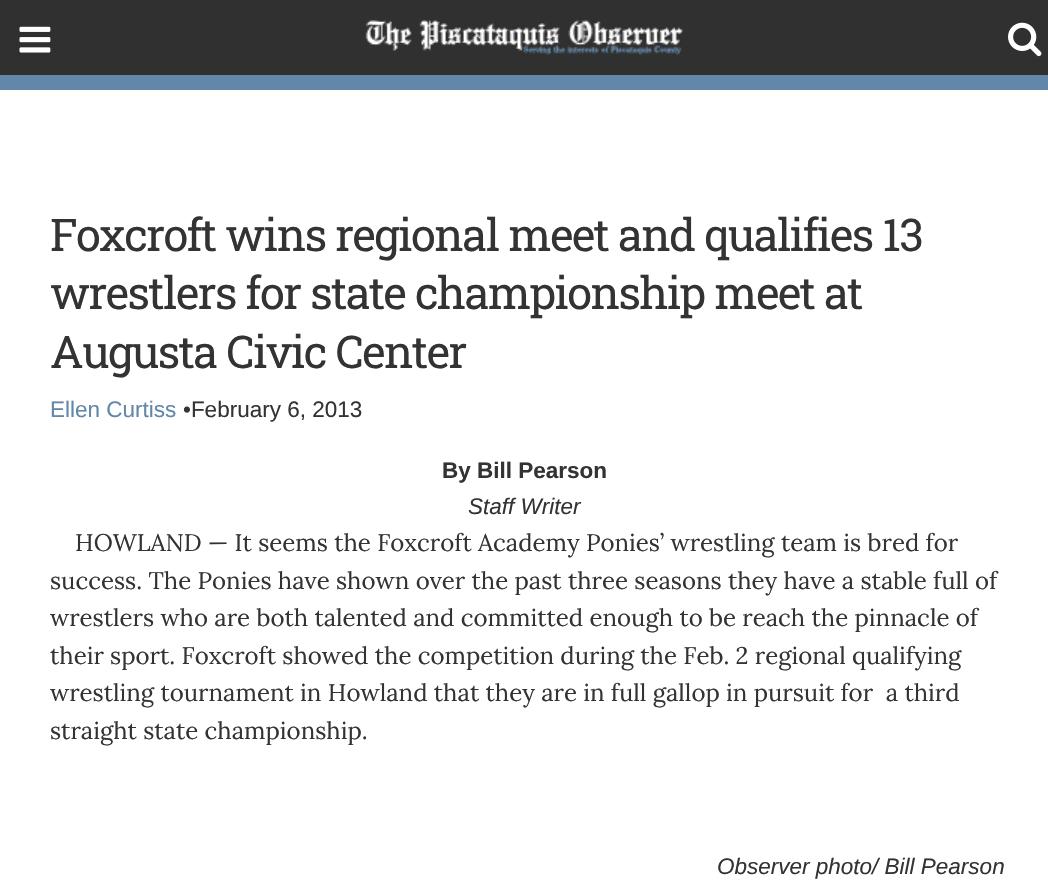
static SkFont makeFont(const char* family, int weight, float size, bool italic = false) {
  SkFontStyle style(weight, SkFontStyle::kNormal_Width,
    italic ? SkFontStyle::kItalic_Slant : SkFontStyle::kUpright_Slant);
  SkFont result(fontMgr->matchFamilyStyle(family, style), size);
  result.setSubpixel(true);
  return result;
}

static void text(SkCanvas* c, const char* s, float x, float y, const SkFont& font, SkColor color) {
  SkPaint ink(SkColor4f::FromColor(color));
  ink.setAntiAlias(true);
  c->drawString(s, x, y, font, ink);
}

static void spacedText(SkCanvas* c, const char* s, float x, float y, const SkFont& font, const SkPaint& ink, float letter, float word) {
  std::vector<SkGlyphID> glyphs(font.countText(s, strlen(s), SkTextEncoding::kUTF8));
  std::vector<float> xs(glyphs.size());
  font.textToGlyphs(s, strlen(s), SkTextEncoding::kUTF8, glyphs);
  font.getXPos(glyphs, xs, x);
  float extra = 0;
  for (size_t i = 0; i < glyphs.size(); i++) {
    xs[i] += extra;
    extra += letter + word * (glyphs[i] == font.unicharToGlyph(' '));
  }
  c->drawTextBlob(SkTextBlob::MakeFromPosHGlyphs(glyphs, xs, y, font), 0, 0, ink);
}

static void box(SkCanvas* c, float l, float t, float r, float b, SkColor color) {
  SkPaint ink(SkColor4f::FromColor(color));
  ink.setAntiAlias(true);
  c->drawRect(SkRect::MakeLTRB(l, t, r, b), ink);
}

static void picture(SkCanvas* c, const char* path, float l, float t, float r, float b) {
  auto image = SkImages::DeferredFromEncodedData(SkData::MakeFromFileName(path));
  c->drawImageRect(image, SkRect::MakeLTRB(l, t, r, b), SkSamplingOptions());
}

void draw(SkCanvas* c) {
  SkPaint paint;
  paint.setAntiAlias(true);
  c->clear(0xffffffff);
  box(c, 0, 0, 1048, 75, 0xff303030);
  box(c, 0, 75, 1048, 90, 0xff6387a8);
  picture(c, "img_01.png", 19, 26, 51, 53);
  picture(c, "img_02.png", 365, 20, 683, 55);
  picture(c, "img_03.png", 1008, 22, 1042, 57);
  SkFont face1 = makeFont("Roboto Slab", 400, 45);
  paint.setColor(0xff333333);
  spacedText(c, "Foxcroft wins regional meet and qualifies 13", 50, 251, face1, paint, -1.5f, 0);
  spacedText(c, "wrestlers for state championship meet at", 50, 309, face1, paint, -1.5f, 0);
  spacedText(c, "Augusta Civic Center", 50, 368, face1, paint, -1.5f, 0);
  SkFont face2 = makeFont("Liberation Sans", 400, 22.5f);
  text(c, "Ellen Curtiss", 50, 417, face2, 0xff6387a8);
  text(c, "•February 6, 2013", 183, 417, face2, 0xff333333);
  SkFont face3 = makeFont("Liberation Sans", 700, 22.5f);
  text(c, "By Bill Pearson", 442, 478, face3, 0xff333333);
  SkFont face4 = makeFont("Liberation Sans", 400, 22.5f, true);
  text(c, "Staff Writer", 468, 514, face4, 0xff333333);
  SkFont face5 = makeFont("Lora", 400, 24);
  text(c, "HOWLAND — It seems the Foxcroft Academy Ponies’ wrestling team is bred for", 75, 551, face5, 0xff333333);
  text(c, "success. The Ponies have shown over the past three seasons they have a stable full of", 50, 589, face5, 0xff333333);
  text(c, "wrestlers who are both talented and committed enough to be reach the pinnacle of", 50, 626, face5, 0xff333333);
  text(c, "their sport. Foxcroft showed the competition during the Feb. 2 regional qualifying", 50, 664, face5, 0xff333333);
  text(c, "wrestling tournament in Howland that they are in full gallop in pursuit for  a third", 50, 701, face5, 0xff333333);
  text(c, "straight state championship.", 50, 739, face5, 0xff333333);
  text(c, "Observer photo/ Bill Pearson", 717, 874, face4, 0xff333333);
}
